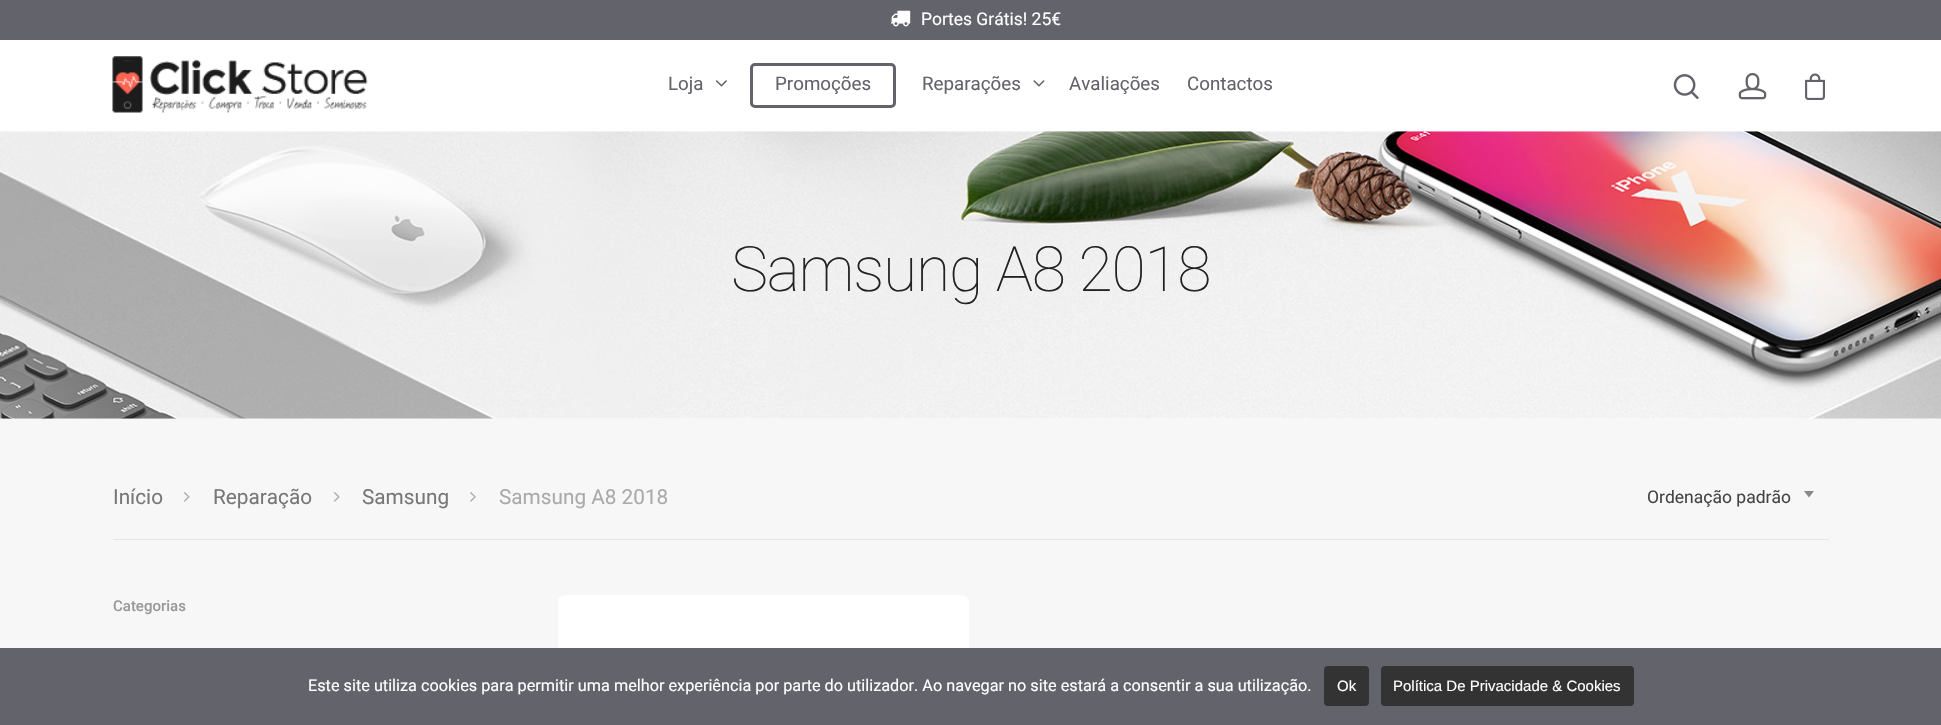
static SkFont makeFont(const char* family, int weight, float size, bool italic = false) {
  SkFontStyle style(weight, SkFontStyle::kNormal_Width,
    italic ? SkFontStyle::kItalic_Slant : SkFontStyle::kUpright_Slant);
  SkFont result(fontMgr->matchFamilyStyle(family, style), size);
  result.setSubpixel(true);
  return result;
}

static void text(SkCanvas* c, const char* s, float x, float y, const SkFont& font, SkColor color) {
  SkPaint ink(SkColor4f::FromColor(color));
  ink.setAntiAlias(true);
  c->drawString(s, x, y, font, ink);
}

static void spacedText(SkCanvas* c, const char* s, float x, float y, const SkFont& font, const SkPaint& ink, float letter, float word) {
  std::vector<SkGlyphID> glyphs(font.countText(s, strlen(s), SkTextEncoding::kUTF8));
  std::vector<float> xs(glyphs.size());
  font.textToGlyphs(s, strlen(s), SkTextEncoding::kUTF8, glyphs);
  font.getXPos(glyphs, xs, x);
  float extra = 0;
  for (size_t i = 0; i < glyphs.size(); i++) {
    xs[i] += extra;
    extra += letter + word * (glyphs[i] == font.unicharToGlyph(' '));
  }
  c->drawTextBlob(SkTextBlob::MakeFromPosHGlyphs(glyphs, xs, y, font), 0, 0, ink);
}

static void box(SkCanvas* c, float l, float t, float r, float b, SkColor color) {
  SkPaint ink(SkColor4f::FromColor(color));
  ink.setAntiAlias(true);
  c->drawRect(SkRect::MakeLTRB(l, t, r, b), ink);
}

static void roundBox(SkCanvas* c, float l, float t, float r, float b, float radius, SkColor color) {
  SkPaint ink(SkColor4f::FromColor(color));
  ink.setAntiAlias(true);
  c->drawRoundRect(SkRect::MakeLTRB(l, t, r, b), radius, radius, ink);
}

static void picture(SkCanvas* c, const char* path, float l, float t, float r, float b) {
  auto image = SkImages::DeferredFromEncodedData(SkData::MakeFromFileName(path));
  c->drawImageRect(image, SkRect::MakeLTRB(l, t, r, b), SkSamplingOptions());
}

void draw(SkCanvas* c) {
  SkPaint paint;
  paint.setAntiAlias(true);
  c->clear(0xffffffff);
  box(c, 0, 0, 1941, 40, 0xff63636c);
  picture(c, "img_01.png", 891, 10, 911, 27);
  SkFont face1 = makeFont("Roboto", 400, 17.5f);
  text(c, "Portes Grátis! 25€", 921, 25, face1, 0xffffffff);
  picture(c, "img_02.png", 112, 56, 368, 113);
  SkFont face2 = makeFont("Roboto", 400, 18.75f);
  text(c, "Loja", 668, 90, face2, 0xff63636c);
  picture(c, "img_03.png", 715, 80, 727, 87);
  paint.setStyle(SkPaint::kStroke_Style);
  paint.setStrokeWidth(3);
  paint.setColor(0xff63636c);
  c->drawRoundRect(SkRect::MakeLTRB(751.5f, 64.5f, 894.5f, 106.5f), 3.5f, 3.5f, paint);
  text(c, "Promoções", 775, 90, face2, 0xff63636c);
  text(c, "Reparações", 922, 90, face2, 0xff63636c);
  picture(c, "img_04.png", 1033, 80, 1045, 87);
  text(c, "Avaliações", 1069, 90, face2, 0xff63636c);
  text(c, "Contactos", 1187, 90, face2, 0xff63636c);
  picture(c, "img_05.png", 1673, 74, 1699, 99);
  picture(c, "img_06.png", 1738, 73, 1767, 100);
  picture(c, "img_07.png", 1805, 73, 1825, 100);
  picture(c, "img_08.png", 0, 131, 1941, 419);
  SkFont face3 = makeFont("Roboto", 100, 62.5f);
  paint.setStyle(SkPaint::kFill_Style);
  paint.setColor(0xff222222);
  spacedText(c, "Samsung A8 2018", 731, 291, face3, paint, -1.25f, 0);
  box(c, 0, 419, 1941, 648, 0xfff7f7f7);
  box(c, 113, 539, 1829, 540, 0xffe6e6e6);
  SkFont face4 = makeFont("Roboto", 400, 20.75f);
  text(c, "Início", 113, 504, face4, 0xff777777);
  picture(c, "img_09.png", 184, 492, 190, 502);
  text(c, "Reparação", 213, 504, face4, 0xff777777);
  picture(c, "img_09.png", 334, 492, 340, 502);
  text(c, "Samsung", 362, 504, face4, 0xff777777);
  picture(c, "img_10.png", 470, 492, 476, 502);
  text(c, "Samsung A8 2018", 499, 504, face4, 0xffaaaaaa);
  text(c, "Ordenação padrão", 1647, 503, face1, 0xff444444);
  paint.setColor(0xff888888);
  c->drawPath(SkPathBuilder().moveTo(1804, 491).lineTo(1814, 491).lineTo(1809, 497.5f).close().detach(), paint);
  SkFont face5 = makeFont("Roboto", 500, 15);
  text(c, "Categorias", 113, 611, face5, 0xff999999);
  roundBox(c, 558, 595, 969, 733, 8, 0xffffffff);
  picture(c, "img_11.png", 558, 597, 560, 600);
  box(c, 0, 648, 1941, 725, 0xff63636c);
  SkFont face6 = makeFont("Roboto", 400, 16.25f);
  text(c, "Este site utiliza cookies para permitir uma melhor experiência por parte do utilizador. Ao navegar no site estará a consentir a sua utilização.", 308, 691, face6, 0xffffffff);
  roundBox(c, 1324, 666, 1369, 706, 4, 0xff333333);
  SkFont face7 = makeFont("Liberation Sans", 400, 15);
  text(c, "Ok", 1337, 691, face7, 0xffffffff);
  roundBox(c, 1381, 666, 1634, 706, 4, 0xff333333);
  text(c, "Política De Privacidade & Cookies", 1393, 691, face7, 0xffffffff);
}
